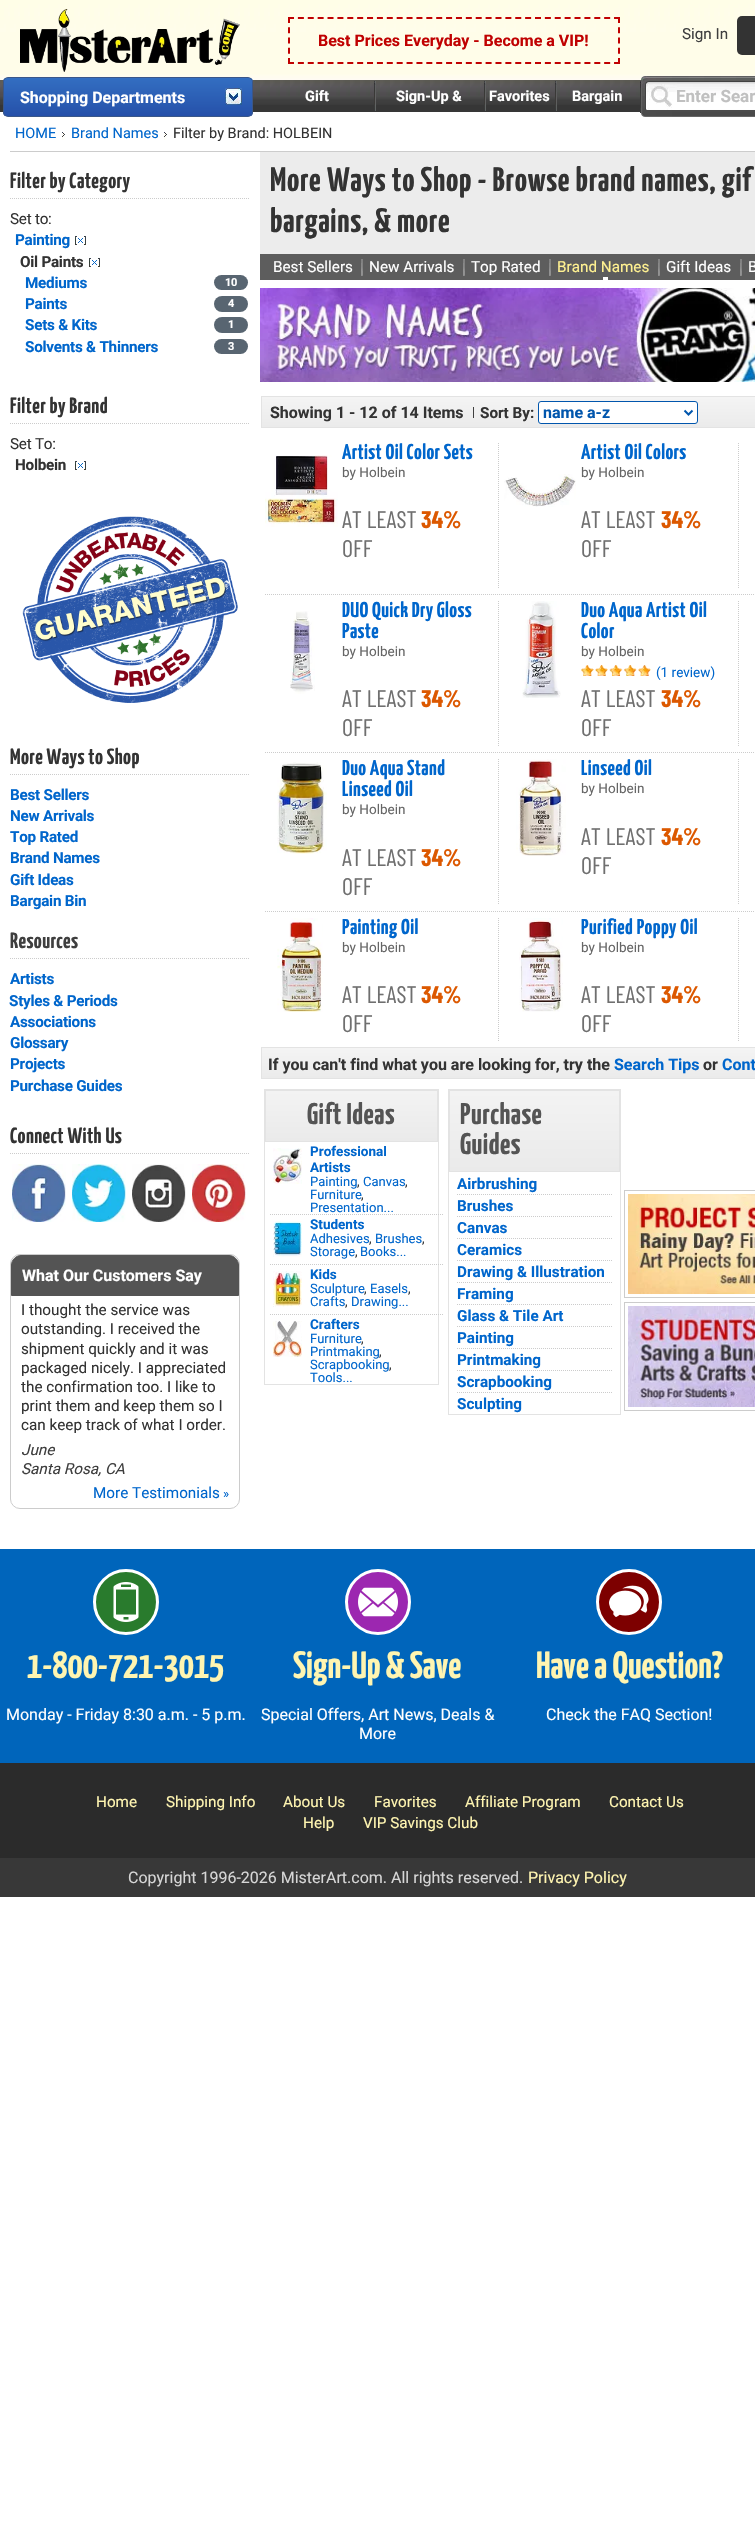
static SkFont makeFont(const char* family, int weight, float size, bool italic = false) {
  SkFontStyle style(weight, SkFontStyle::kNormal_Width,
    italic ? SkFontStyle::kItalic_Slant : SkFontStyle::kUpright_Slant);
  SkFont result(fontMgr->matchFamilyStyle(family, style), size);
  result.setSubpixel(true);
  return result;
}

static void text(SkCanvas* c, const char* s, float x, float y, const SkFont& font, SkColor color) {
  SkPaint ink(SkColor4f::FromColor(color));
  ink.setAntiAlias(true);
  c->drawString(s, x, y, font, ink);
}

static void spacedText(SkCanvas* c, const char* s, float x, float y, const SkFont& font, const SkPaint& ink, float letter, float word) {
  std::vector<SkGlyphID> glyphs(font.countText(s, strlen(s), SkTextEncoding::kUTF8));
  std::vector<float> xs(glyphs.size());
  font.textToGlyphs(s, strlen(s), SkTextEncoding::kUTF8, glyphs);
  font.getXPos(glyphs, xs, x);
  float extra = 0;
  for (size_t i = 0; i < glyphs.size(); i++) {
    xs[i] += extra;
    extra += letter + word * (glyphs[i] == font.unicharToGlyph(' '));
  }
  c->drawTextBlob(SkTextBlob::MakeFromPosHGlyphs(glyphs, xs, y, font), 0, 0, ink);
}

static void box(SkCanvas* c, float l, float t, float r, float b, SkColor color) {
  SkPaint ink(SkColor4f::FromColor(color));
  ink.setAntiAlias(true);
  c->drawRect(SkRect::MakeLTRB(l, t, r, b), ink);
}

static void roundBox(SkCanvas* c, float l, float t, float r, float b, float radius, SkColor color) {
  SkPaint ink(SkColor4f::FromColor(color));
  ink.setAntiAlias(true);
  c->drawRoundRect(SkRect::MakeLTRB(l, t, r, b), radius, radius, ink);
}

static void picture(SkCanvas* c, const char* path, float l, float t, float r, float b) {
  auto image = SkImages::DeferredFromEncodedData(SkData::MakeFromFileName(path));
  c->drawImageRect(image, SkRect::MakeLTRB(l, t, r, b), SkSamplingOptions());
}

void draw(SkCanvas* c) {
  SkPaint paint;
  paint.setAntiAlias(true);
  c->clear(0xffffffff);
  box(c, 0, 105, 640, 112, 0xff363636);
  picture(c, "img_01.png", 0, 0, 755, 105);
  picture(c, "img_02.png", 20, 9, 240, 72);
  paint.setStyle(SkPaint::kStroke_Style);
  paint.setStrokeWidth(2);
  paint.setColor(0xffc00101);
  paint.setPathEffect(SkDashPathEffect::Make({{6, 3.88f}}, 0));
  c->drawPath(SkPathBuilder().moveTo(288, 18).lineTo(620, 18).detach(), paint);
  paint.setPathEffect(nullptr);
  paint.setPathEffect(SkDashPathEffect::Make({{6, 4.25f}}, 0));
  c->drawPath(SkPathBuilder().moveTo(619, 17).lineTo(619, 64).detach(), paint);
  paint.setPathEffect(nullptr);
  paint.setPathEffect(SkDashPathEffect::Make({{6, 3.88f}}, 0));
  c->drawPath(SkPathBuilder().moveTo(288, 63).lineTo(620, 63).detach(), paint);
  paint.setPathEffect(nullptr);
  paint.setPathEffect(SkDashPathEffect::Make({{6, 4.25f}}, 0));
  c->drawPath(SkPathBuilder().moveTo(289, 17).lineTo(289, 64).detach(), paint);
  paint.setPathEffect(nullptr);
  SkFont face1 = makeFont("Roboto", 700, 16);
  text(c, "Best Prices Everyday - Become a VIP!", 318, 46, face1, 0xffc00101);
  SkFont face2 = makeFont("Roboto", 400, 15.25f);
  text(c, "Sign In", 682, 39, face2, 0xff3f3f3f);
  roundBox(c, 737, 16, 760, 55, 5, 0xff333333);
  c->save();
  c->clipPath(SkPathBuilder().moveTo(8, 77).lineTo(248, 77).cubicTo(251, 77, 253, 79, 253, 82).lineTo(253, 112).cubicTo(253, 115, 251, 117, 248, 117).lineTo(8, 117).cubicTo(5, 117, 3, 115, 3, 112).lineTo(3, 82).cubicTo(3, 79, 5, 77, 8, 77).close().detach(), true);
  paint.setStyle(SkPaint::kFill_Style);
  {
    const SkColor colors[] = {0xff336ec1, 0xff2a5bb2, 0xff2550a9};
    const float stops[] = {0, 0.66f, 1};
    const SkPoint ends[] = {{128, 78}, {128, 116}};
    paint.setShader(SkGradientShader::MakeLinear(ends, colors, stops, 3, SkTileMode::kClamp));
    paint.setAlpha(255);
  }
  c->drawRect(SkRect::MakeLTRB(3, 78, 253, 116), paint);
  c->restore();
  paint.setStyle(SkPaint::kStroke_Style);
  paint.setStrokeWidth(1);
  paint.setShader(nullptr);
  paint.setColor(0xff3a5789);
  c->drawRoundRect(SkRect::MakeLTRB(3.5f, 77.5f, 252.5f, 116.5f), 4.5f, 4.5f, paint);
  text(c, "Shopping Departments", 20, 103, face1, 0xffffffff);
  picture(c, "img_03.png", 225, 88, 242, 105);
  SkFont face3 = makeFont("Roboto", 700, 14.5f);
  text(c, "Gift", 305, 101, face3, 0xffffffff);
  picture(c, "img_04.png", 374, 81, 376, 111);
  text(c, "Sign-Up &", 396, 101, face3, 0xffffffff);
  picture(c, "img_04.png", 484, 81, 486, 111);
  text(c, "Favorites", 489, 101, face3, 0xffffffff);
  picture(c, "img_05.png", 555, 81, 557, 111);
  text(c, "Bargain", 572, 101, face3, 0xffffffff);
  picture(c, "img_06.png", 640, 76, 755, 117);
  picture(c, "img_07.png", 645, 81, 755, 110);
  SkFont face4 = makeFont("Roboto", 700, 17);
  text(c, "Enter Sear", 676, 102, face4, 0xffc0c0c0);
  box(c, 10, 151, 755, 152, 0xffcccccc);
  SkFont face5 = makeFont("Roboto", 400, 14.5f);
  text(c, "HOME", 15, 138, face5, 0xff0066cc);
  picture(c, "img_08.png", 62, 132, 65, 140);
  text(c, "Brand Names", 71, 138, face5, 0xff0066cc);
  picture(c, "img_08.png", 164, 132, 167, 140);
  text(c, "Filter by Brand: HOLBEIN", 173, 138, face5, 0xff333333);
  paint.setColor(0xffcccccc);
  paint.setPathEffect(SkDashPathEffect::Make({{1, 1}}, 0));
  c->drawPath(SkPathBuilder().moveTo(10, 198.5f).lineTo(250, 198.5f).detach(), paint);
  paint.setPathEffect(nullptr);
  SkFont face6 = makeFont("Yanone Kaffeesatz", 200, 22);
  paint.setStyle(SkPaint::kFill_Style);
  paint.setColor(0xff333333);
  spacedText(c, "Filter by Category", 10, 188, face6, paint, 0.4f, 0);
  spacedText(c, "Set to:", 10, 224, face2, paint, -0.25f, 0);
  SkFont face7 = makeFont("Roboto", 700, 15.25f);
  paint.setColor(0xff0066cc);
  spacedText(c, "Painting", 15, 245, face7, paint, -0.25f, 0);
  picture(c, "img_09.png", 75, 236, 86, 245);
  paint.setColor(0xff333333);
  spacedText(c, "Oil Paints", 20, 267, face7, paint, -0.25f, 0);
  picture(c, "img_09.png", 89, 258, 100, 267);
  paint.setColor(0xff0066cc);
  spacedText(c, "Mediums", 25, 288, face7, paint, -0.25f, 0);
  roundBox(c, 214, 275, 248, 290, 7.5f, 0xff586571);
  SkFont face8 = makeFont("Roboto", 700, 11);
  paint.setColor(0xffffffff);
  spacedText(c, "10", 225, 286, face8, paint, -0.25f, 0);
  paint.setColor(0xff0066cc);
  spacedText(c, "Paints", 25, 309, face7, paint, -0.25f, 0);
  roundBox(c, 214, 296, 248, 312, 8, 0xff586571);
  paint.setColor(0xffffffff);
  spacedText(c, "4", 228, 307, face8, paint, -0.25f, 0);
  paint.setColor(0xff0066cc);
  spacedText(c, "Sets & Kits", 25, 330, face7, paint, -0.25f, 0);
  roundBox(c, 214, 317, 248, 333, 8, 0xff586571);
  paint.setColor(0xffffffff);
  spacedText(c, "1", 228, 328, face8, paint, -0.25f, 0);
  paint.setColor(0xff0066cc);
  spacedText(c, "Solvents & Thinners", 25, 352, face7, paint, -0.25f, 0);
  roundBox(c, 214, 339, 248, 354, 7.5f, 0xff586571);
  paint.setColor(0xffffffff);
  spacedText(c, "3", 228, 350, face8, paint, -0.25f, 0);
  paint.setStyle(SkPaint::kStroke_Style);
  paint.setColor(0xffcccccc);
  paint.setPathEffect(SkDashPathEffect::Make({{1, 1}}, 0));
  c->drawPath(SkPathBuilder().moveTo(10, 423.5f).lineTo(250, 423.5f).detach(), paint);
  paint.setPathEffect(nullptr);
  paint.setStyle(SkPaint::kFill_Style);
  paint.setColor(0xff333333);
  spacedText(c, "Filter by Brand", 10, 413, face6, paint, 0.4f, 0);
  spacedText(c, "Set To:", 10, 449, face2, paint, -0.25f, 0);
  spacedText(c, "Holbein", 15, 470, face7, paint, -0.25f, 0);
  picture(c, "img_09.png", 75, 461, 86, 470);
  picture(c, "img_10.png", 22, 516, 238, 703);
  paint.setStyle(SkPaint::kStroke_Style);
  paint.setColor(0xffcccccc);
  paint.setPathEffect(SkDashPathEffect::Make({{1, 1}}, 0));
  c->drawPath(SkPathBuilder().moveTo(10, 774.5f).lineTo(250, 774.5f).detach(), paint);
  paint.setPathEffect(nullptr);
  paint.setStyle(SkPaint::kFill_Style);
  paint.setColor(0xff333333);
  spacedText(c, "More Ways to Shop", 10, 764, face6, paint, 0.4f, 0);
  paint.setColor(0xff0066cc);
  spacedText(c, "Best Sellers", 10, 800, face7, paint, -0.25f, 0);
  spacedText(c, "New Arrivals", 10, 821, face7, paint, -0.25f, 0);
  spacedText(c, "Top Rated", 10, 842, face7, paint, -0.25f, 0);
  spacedText(c, "Brand Names", 10, 863, face7, paint, -0.25f, 0);
  spacedText(c, "Gift Ideas", 10, 885, face7, paint, -0.25f, 0);
  spacedText(c, "Bargain Bin", 10, 906, face7, paint, -0.25f, 0);
  paint.setStyle(SkPaint::kStroke_Style);
  paint.setColor(0xffcccccc);
  paint.setPathEffect(SkDashPathEffect::Make({{1, 1}}, 0));
  c->drawPath(SkPathBuilder().moveTo(10, 958.5f).lineTo(250, 958.5f).detach(), paint);
  paint.setPathEffect(nullptr);
  paint.setStyle(SkPaint::kFill_Style);
  paint.setColor(0xff3f3f3f);
  spacedText(c, "Resources", 10, 948, face6, paint, 0.4f, 0);
  paint.setColor(0xff0066cc);
  spacedText(c, "Artists", 10, 984, face7, paint, -0.25f, 0);
  spacedText(c, "Styles & Periods", 9, 1006, face7, paint, -0.25f, 0);
  spacedText(c, "Associations", 10, 1027, face7, paint, -0.25f, 0);
  spacedText(c, "Glossary", 10, 1048, face7, paint, -0.25f, 0);
  spacedText(c, "Projects", 10, 1069, face7, paint, -0.25f, 0);
  spacedText(c, "Purchase Guides", 10, 1091, face7, paint, -0.25f, 0);
  paint.setStyle(SkPaint::kStroke_Style);
  paint.setColor(0xffcccccc);
  paint.setPathEffect(SkDashPathEffect::Make({{1, 1}}, 0));
  c->drawPath(SkPathBuilder().moveTo(10, 1153.5f).lineTo(250, 1153.5f).detach(), paint);
  paint.setPathEffect(nullptr);
  paint.setStyle(SkPaint::kFill_Style);
  paint.setColor(0xff333333);
  spacedText(c, "Connect With Us", 10, 1143, face6, paint, 0.4f, 0);
  picture(c, "img_11.png", 12, 1164, 66, 1222);
  picture(c, "img_12.png", 72, 1164, 126, 1222);
  picture(c, "img_13.png", 132, 1164, 186, 1222);
  picture(c, "img_14.png", 192, 1164, 246, 1222);
  paint.setStyle(SkPaint::kStroke_Style);
  paint.setColor(0xffcccccc);
  c->drawRoundRect(SkRect::MakeLTRB(10.5f, 1254.5f, 239.5f, 1508.5f), 9.5f, 9.5f, paint);
  paint.setStyle(SkPaint::kFill_Style);
  paint.setColor(0xff545454);
  c->drawPath(SkPathBuilder().moveTo(21, 1255.5f).lineTo(229, 1255.5f).cubicTo(234, 1255.5f, 238.5f, 1260, 238.5f, 1265).lineTo(238.5f, 1295.5f).lineTo(11.5f, 1295.5f).lineTo(11.5f, 1265).cubicTo(11.5f, 1260, 16, 1255.5f, 21, 1255.5f).close().detach(), paint);
  paint.setStyle(SkPaint::kStroke_Style);
  c->drawPath(SkPathBuilder().moveTo(21, 1255.5f).lineTo(229, 1255.5f).cubicTo(234, 1255.5f, 238.5f, 1260, 238.5f, 1265).lineTo(238.5f, 1295.5f).lineTo(11.5f, 1295.5f).lineTo(11.5f, 1265).cubicTo(11.5f, 1260, 16, 1255.5f, 21, 1255.5f).close().detach(), paint);
  text(c, "What Our Customers Say", 22, 1281, face1, 0xffffffff);
  text(c, "I thought the service was", 21, 1315, face2, 0xff333333);
  text(c, "outstanding. I received the", 21, 1334, face2, 0xff333333);
  text(c, "shipment quickly and it was", 21, 1354, face2, 0xff333333);
  text(c, "packaged nicely. I appreciated", 21, 1373, face2, 0xff333333);
  text(c, "the confirmation too. I like to", 21, 1392, face2, 0xff333333);
  text(c, "print them and keep them so I", 21, 1411, face2, 0xff333333);
  text(c, "can keep track of what I order.", 21, 1430, face2, 0xff333333);
  SkFont face9 = makeFont("Roboto", 400, 15.25f, true);
  text(c, "June", 21, 1455, face9, 0xff3f3f3f);
  text(c, "Santa Rosa, CA", 21, 1474, face9, 0xff3f3f3f);
  text(c, "More Testimonials", 93, 1498, face2, 0xff0066cc);
  SkFont face10 = makeFont("Roboto", 400, 13);
  text(c, "»", 223, 1498, face10, 0xff0066cc);
  box(c, 260, 152, 755, 254, 0xffececec);
  SkFont face11 = makeFont("Yanone Kaffeesatz", 200, 34);
  paint.setStyle(SkPaint::kFill_Style);
  paint.setColor(0xff333333);
  spacedText(c, "More Ways to Shop - Browse brand names, gif", 270, 191, face11, paint, 0.7f, 0);
  spacedText(c, "bargains, & more", 270, 232, face11, paint, 0.7f, 0);
  box(c, 260, 254, 755, 280, 0xff5d5d5d);
  text(c, "Best Sellers", 273, 272, face2, 0xffffffff);
  picture(c, "img_15.png", 361, 259, 363, 276);
  text(c, "New Arrivals", 369, 272, face2, 0xffffffff);
  picture(c, "img_15.png", 463, 259, 465, 276);
  text(c, "Top Rated", 471, 272, face2, 0xffffffff);
  picture(c, "img_15.png", 549, 259, 551, 276);
  text(c, "Brand Names", 557, 272, face2, 0xfffff191);
  box(c, 603, 277, 608, 280, 0xffffffff);
  picture(c, "img_15.png", 658, 259, 660, 276);
  text(c, "Gift Ideas", 666, 272, face2, 0xffffffff);
  picture(c, "img_15.png", 740, 259, 742, 276);
  text(c, "B", 748, 272, face2, 0xffffffff);
  picture(c, "img_16.png", 260, 288, 755, 382);
  {
    const SkColor colors[] = {0xfff4f4f4, 0xffebebeb};
    const float stops[] = {0, 1};
    const SkPoint ends[] = {{624, 397}, {624, 427}};
    paint.setShader(SkGradientShader::MakeLinear(ends, colors, stops, 2, SkTileMode::kClamp));
    paint.setAlpha(255);
  }
  c->drawRect(SkRect::MakeLTRB(262, 397, 755, 427), paint);
  paint.setStyle(SkPaint::kStroke_Style);
  paint.setShader(nullptr);
  paint.setColor(0xffe3e3e3);
  c->drawRect(SkRect::MakeLTRB(261.5f, 396.5f, 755.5f, 427.5f), paint);
  box(c, 473, 407, 474, 418, 0xff3f3f3f);
  text(c, "Showing 1 - 12 of 14 Items", 270, 418, face1, 0xff333333);
  text(c, "Sort By:", 480, 418, face7, 0xff333333);
  paint.setStyle(SkPaint::kFill_Style);
  paint.setColor(0xffffffff);
  c->drawRoundRect(SkRect::MakeLTRB(538.5f, 401.5f, 697.5f, 423.5f), 2.5f, 2.5f, paint);
  paint.setStyle(SkPaint::kStroke_Style);
  paint.setColor(0xff0156ad);
  c->drawRoundRect(SkRect::MakeLTRB(538.5f, 401.5f, 697.5f, 423.5f), 2.5f, 2.5f, paint);
  paint.setStrokeWidth(2);
  c->drawPath(SkPathBuilder().moveTo(684.5f, 410.5f).lineTo(688.5f, 414.5f).lineTo(692.5f, 410.5f).detach(), paint);
  text(c, "name a-z", 543, 418, face1, 0xff0156ad);
  paint.setStrokeWidth(1);
  paint.setColor(0xffcccccc);
  paint.setPathEffect(SkDashPathEffect::Make({{1, 1}}, 0));
  c->drawPath(SkPathBuilder().moveTo(498.5f, 443).lineTo(498.5f, 588).detach(), paint);
  paint.setPathEffect(nullptr);
  picture(c, "img_17.png", 265, 455, 338, 527);
  SkFont face12 = makeFont("Yanone Kaffeesatz", 200, 21.5f);
  paint.setStyle(SkPaint::kFill_Style);
  paint.setColor(0xff0066cc);
  spacedText(c, "Artist Oil Color Sets", 342, 459, face12, paint, 0.4f, 0);
  SkFont face13 = makeFont("Roboto", 400, 13.5f);
  text(c, "by Holbein", 342, 477, face13, 0xff666666);
  SkFont face14 = makeFont("Barlow Condensed", 400, 24);
  text(c, "AT LEAST", 342, 528, face14, 0xff6f6f6f);
  SkFont face15 = makeFont("Barlow Condensed", 700, 24);
  text(c, "34%", 421, 528, face15, 0xffdc5800);
  text(c, "OFF", 342, 557, face14, 0xff6f6f6f);
  paint.setStyle(SkPaint::kStroke_Style);
  paint.setColor(0xffcccccc);
  paint.setPathEffect(SkDashPathEffect::Make({{1, 1}}, 0));
  c->drawPath(SkPathBuilder().moveTo(738.5f, 443).lineTo(738.5f, 588).detach(), paint);
  paint.setPathEffect(nullptr);
  picture(c, "img_18.png", 504, 474, 576, 507);
  paint.setStyle(SkPaint::kFill_Style);
  paint.setColor(0xff0066cc);
  spacedText(c, "Artist Oil Colors", 581, 459, face12, paint, 0.4f, 0);
  text(c, "by Holbein", 581, 477, face13, 0xff666666);
  text(c, "AT LEAST", 581, 528, face14, 0xff6f6f6f);
  text(c, "34%", 661, 528, face15, 0xffdc5800);
  text(c, "OFF", 581, 557, face14, 0xff6f6f6f);
  paint.setStyle(SkPaint::kStroke_Style);
  paint.setColor(0xffcccccc);
  paint.setPathEffect(SkDashPathEffect::Make({{1, 1}}, 0));
  c->drawPath(SkPathBuilder().moveTo(265, 594.5f).lineTo(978, 594.5f).detach(), paint);
  paint.setPathEffect(nullptr);
  paint.setPathEffect(SkDashPathEffect::Make({{1, 1}}, 0));
  c->drawPath(SkPathBuilder().moveTo(498.5f, 601).lineTo(498.5f, 746).detach(), paint);
  paint.setPathEffect(nullptr);
  picture(c, "img_19.png", 290, 611, 315, 694);
  paint.setStyle(SkPaint::kFill_Style);
  paint.setColor(0xff0066cc);
  spacedText(c, "DUO Quick Dry Gloss", 342, 617, face12, paint, 0.4f, 0);
  spacedText(c, "Paste", 342, 638, face12, paint, 0.4f, 0);
  text(c, "by Holbein", 342, 656, face13, 0xff666666);
  text(c, "AT LEAST", 342, 707, face14, 0xff6f6f6f);
  text(c, "34%", 421, 707, face15, 0xffdc5800);
  text(c, "OFF", 342, 736, face14, 0xff6f6f6f);
  paint.setStyle(SkPaint::kStroke_Style);
  paint.setColor(0xffcccccc);
  paint.setPathEffect(SkDashPathEffect::Make({{1, 1}}, 0));
  c->drawPath(SkPathBuilder().moveTo(738.5f, 601).lineTo(738.5f, 746).detach(), paint);
  paint.setPathEffect(nullptr);
  picture(c, "img_20.png", 522, 601, 561, 698);
  paint.setStyle(SkPaint::kFill_Style);
  paint.setColor(0xff0066cc);
  spacedText(c, "Duo Aqua Artist Oil", 581, 617, face12, paint, 0.4f, 0);
  spacedText(c, "Color", 581, 638, face12, paint, 0.4f, 0);
  text(c, "by Holbein", 581, 656, face13, 0xff666666);
  picture(c, "img_21.png", 581, 665, 651, 676);
  text(c, "(1 review)", 656, 677, face13, 0xff0066cc);
  text(c, "AT LEAST", 581, 707, face14, 0xff6f6f6f);
  text(c, "34%", 661, 707, face15, 0xffdc5800);
  text(c, "OFF", 581, 736, face14, 0xff6f6f6f);
  paint.setStyle(SkPaint::kStroke_Style);
  paint.setColor(0xffcccccc);
  paint.setPathEffect(SkDashPathEffect::Make({{1, 1}}, 0));
  c->drawPath(SkPathBuilder().moveTo(265, 752.5f).lineTo(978, 752.5f).detach(), paint);
  paint.setPathEffect(nullptr);
  paint.setPathEffect(SkDashPathEffect::Make({{1, 1}}, 0));
  c->drawPath(SkPathBuilder().moveTo(498.5f, 759).lineTo(498.5f, 905).detach(), paint);
  paint.setPathEffect(nullptr);
  picture(c, "img_22.png", 277, 762, 327, 854);
  paint.setStyle(SkPaint::kFill_Style);
  paint.setColor(0xff0066cc);
  spacedText(c, "Duo Aqua Stand", 342, 775, face12, paint, 0.4f, 0);
  spacedText(c, "Linseed Oil", 342, 796, face12, paint, 0.4f, 0);
  text(c, "by Holbein", 342, 814, face13, 0xff666666);
  text(c, "AT LEAST", 342, 866, face14, 0xff6f6f6f);
  text(c, "34%", 421, 866, face15, 0xffdc5800);
  text(c, "OFF", 342, 895, face14, 0xff6f6f6f);
  paint.setStyle(SkPaint::kStroke_Style);
  paint.setColor(0xffcccccc);
  paint.setPathEffect(SkDashPathEffect::Make({{1, 1}}, 0));
  c->drawPath(SkPathBuilder().moveTo(738.5f, 759).lineTo(738.5f, 905).detach(), paint);
  paint.setPathEffect(nullptr);
  picture(c, "img_23.png", 516, 759, 566, 856);
  paint.setStyle(SkPaint::kFill_Style);
  paint.setColor(0xff0066cc);
  spacedText(c, "Linseed Oil", 581, 775, face12, paint, 0.4f, 0);
  text(c, "by Holbein", 581, 793, face13, 0xff666666);
  text(c, "AT LEAST", 581, 845, face14, 0xff6f6f6f);
  text(c, "34%", 661, 845, face15, 0xffdc5800);
  text(c, "OFF", 581, 874, face14, 0xff6f6f6f);
  paint.setStyle(SkPaint::kStroke_Style);
  paint.setColor(0xffcccccc);
  paint.setPathEffect(SkDashPathEffect::Make({{1, 1}}, 0));
  c->drawPath(SkPathBuilder().moveTo(265, 911.5f).lineTo(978, 911.5f).detach(), paint);
  paint.setPathEffect(nullptr);
  paint.setPathEffect(SkDashPathEffect::Make({{1, 1}}, 0));
  c->drawPath(SkPathBuilder().moveTo(498.5f, 918).lineTo(498.5f, 1042).detach(), paint);
  paint.setPathEffect(nullptr);
  picture(c, "img_24.png", 277, 918, 323, 1012);
  paint.setStyle(SkPaint::kFill_Style);
  paint.setColor(0xff0066cc);
  spacedText(c, "Painting Oil", 342, 934, face12, paint, 0.4f, 0);
  text(c, "by Holbein", 342, 952, face13, 0xff666666);
  text(c, "AT LEAST", 342, 1003, face14, 0xff6f6f6f);
  text(c, "34%", 421, 1003, face15, 0xffdc5800);
  text(c, "OFF", 342, 1032, face14, 0xff6f6f6f);
  paint.setStyle(SkPaint::kStroke_Style);
  paint.setColor(0xffcccccc);
  paint.setPathEffect(SkDashPathEffect::Make({{1, 1}}, 0));
  c->drawPath(SkPathBuilder().moveTo(738.5f, 918).lineTo(738.5f, 1042).detach(), paint);
  paint.setPathEffect(nullptr);
  picture(c, "img_25.png", 519, 918, 563, 1012);
  paint.setStyle(SkPaint::kFill_Style);
  paint.setColor(0xff0066cc);
  spacedText(c, "Purified Poppy Oil", 581, 934, face12, paint, 0.4f, 0);
  text(c, "by Holbein", 581, 952, face13, 0xff666666);
  text(c, "AT LEAST", 581, 1003, face14, 0xff6f6f6f);
  text(c, "34%", 661, 1003, face15, 0xffdc5800);
  text(c, "OFF", 581, 1032, face14, 0xff6f6f6f);
  {
    const SkColor colors[] = {0xfff4f4f4, 0xffebebeb};
    const float stops[] = {0, 1};
    const SkPoint ends[] = {{624, 1048}, {624, 1078}};
    paint.setShader(SkGradientShader::MakeLinear(ends, colors, stops, 2, SkTileMode::kClamp));
    paint.setAlpha(255);
  }
  c->drawRect(SkRect::MakeLTRB(262, 1048, 755, 1078), paint);
  paint.setStyle(SkPaint::kStroke_Style);
  paint.setShader(nullptr);
  paint.setColor(0xffe3e3e3);
  c->drawRect(SkRect::MakeLTRB(261.5f, 1047.5f, 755.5f, 1078.5f), paint);
  text(c, "If you can't find what you are looking for, try the", 268, 1070, face1, 0xff333333);
  text(c, "Search Tips", 614, 1070, face1, 0xff0066cc);
  text(c, "or", 703, 1070, face1, 0xff333333);
  text(c, "Cont", 722, 1070, face1, 0xff0066cc);
  c->drawRect(SkRect::MakeLTRB(264.5f, 1089.5f, 438.5f, 1384.5f), paint);
  paint.setStyle(SkPaint::kFill_Style);
  {
    const SkColor colors[] = {0xfff3f3f3, 0xffeaeaea};
    const float stops[] = {0.01f, 1};
    const SkPoint ends[] = {{352, 1091}, {352, 1141}};
    paint.setShader(SkGradientShader::MakeLinear(ends, colors, stops, 2, SkTileMode::kClamp));
    paint.setAlpha(255);
  }
  c->drawRect(SkRect::MakeLTRB(266, 1091, 437, 1141), paint);
  paint.setStyle(SkPaint::kStroke_Style);
  paint.setShader(nullptr);
  paint.setColor(0xffe3e3e3);
  c->drawRect(SkRect::MakeLTRB(265.5f, 1090.5f, 437.5f, 1141.5f), paint);
  SkFont face16 = makeFont("Yanone Kaffeesatz", 200, 30);
  paint.setStyle(SkPaint::kFill_Style);
  paint.setColor(0xff545454);
  spacedText(c, "Gift Ideas", 307, 1124, face16, paint, 0.5f, 0);
  paint.setStyle(SkPaint::kStroke_Style);
  paint.setColor(0xffcccccc);
  paint.setPathEffect(SkDashPathEffect::Make({{1, 1}}, 0));
  c->drawPath(SkPathBuilder().moveTo(270, 1214.5f).lineTo(443, 1214.5f).detach(), paint);
  paint.setPathEffect(nullptr);
  picture(c, "img_26.png", 273, 1148, 302, 1184);
  SkFont face17 = makeFont("Roboto", 700, 13.5f);
  text(c, "Professional", 310, 1156, face17, 0xff0066cc);
  text(c, "Artists", 310, 1172, face17, 0xff0066cc);
  text(c, "Painting", 310, 1186, face10, 0xff0066cc);
  text(c, ",", 357, 1186, face10, 0xff333333);
  text(c, "Canvas", 363, 1186, face10, 0xff0066cc);
  text(c, ",", 405, 1186, face10, 0xff333333);
  text(c, "Furniture", 310, 1199, face10, 0xff0066cc);
  text(c, ",", 361, 1199, face10, 0xff333333);
  text(c, "Presentation...", 310, 1212, face10, 0xff0066cc);
  paint.setPathEffect(SkDashPathEffect::Make({{1, 1}}, 0));
  c->drawPath(SkPathBuilder().moveTo(270, 1264.5f).lineTo(443, 1264.5f).detach(), paint);
  paint.setPathEffect(nullptr);
  picture(c, "img_27.png", 273, 1221, 302, 1257);
  text(c, "Students", 310, 1229, face17, 0xff0066cc);
  text(c, "Adhesives", 310, 1243, face10, 0xff0066cc);
  text(c, ",", 369, 1243, face10, 0xff333333);
  text(c, "Brushes", 375, 1243, face10, 0xff0066cc);
  text(c, ",", 422, 1243, face10, 0xff333333);
  text(c, "Storage", 310, 1256, face10, 0xff0066cc);
  text(c, ",", 355, 1256, face10, 0xff333333);
  text(c, "Books...", 360, 1256, face10, 0xff0066cc);
  paint.setPathEffect(SkDashPathEffect::Make({{1, 1}}, 0));
  c->drawPath(SkPathBuilder().moveTo(270, 1314.5f).lineTo(443, 1314.5f).detach(), paint);
  paint.setPathEffect(nullptr);
  picture(c, "img_28.png", 273, 1271, 302, 1307);
  text(c, "Kids", 310, 1279, face17, 0xff0066cc);
  text(c, "Sculpture", 310, 1293, face10, 0xff0066cc);
  text(c, ",", 364, 1293, face10, 0xff333333);
  text(c, "Easels", 370, 1293, face10, 0xff0066cc);
  text(c, ",", 408, 1293, face10, 0xff333333);
  text(c, "Crafts", 310, 1306, face10, 0xff0066cc);
  text(c, ",", 345, 1306, face10, 0xff333333);
  text(c, "Drawing...", 351, 1306, face10, 0xff0066cc);
  picture(c, "img_29.png", 273, 1321, 302, 1357);
  text(c, "Crafters", 310, 1329, face17, 0xff0066cc);
  text(c, "Furniture", 310, 1343, face10, 0xff0066cc);
  text(c, ",", 361, 1343, face10, 0xff333333);
  text(c, "Printmaking", 310, 1356, face10, 0xff0066cc);
  text(c, ",", 379, 1356, face10, 0xff333333);
  text(c, "Scrapbooking", 310, 1369, face10, 0xff0066cc);
  text(c, ",", 389, 1369, face10, 0xff333333);
  text(c, "Tools...", 310, 1382, face10, 0xff0066cc);
  paint.setColor(0xffe3e3e3);
  c->drawRect(SkRect::MakeLTRB(448.5f, 1089.5f, 620.5f, 1414.5f), paint);
  paint.setStyle(SkPaint::kFill_Style);
  {
    const SkColor colors[] = {0xfff3f3f3, 0xffeaeaea};
    const float stops[] = {0.01f, 1};
    const SkPoint ends[] = {{535, 1091}, {535, 1171}};
    paint.setShader(SkGradientShader::MakeLinear(ends, colors, stops, 2, SkTileMode::kClamp));
    paint.setAlpha(255);
  }
  c->drawRect(SkRect::MakeLTRB(450, 1091, 619, 1171), paint);
  paint.setStyle(SkPaint::kStroke_Style);
  paint.setShader(nullptr);
  paint.setColor(0xffe3e3e3);
  c->drawRect(SkRect::MakeLTRB(449.5f, 1090.5f, 619.5f, 1171.5f), paint);
  paint.setStyle(SkPaint::kFill_Style);
  paint.setColor(0xff545454);
  spacedText(c, "Purchase", 460, 1124, face16, paint, 0.5f, 0);
  spacedText(c, "Guides", 460, 1154, face16, paint, 0.5f, 0);
  paint.setStyle(SkPaint::kStroke_Style);
  paint.setColor(0xffcccccc);
  paint.setPathEffect(SkDashPathEffect::Make({{1, 1}}, 0));
  c->drawPath(SkPathBuilder().moveTo(457, 1194.5f).lineTo(612, 1194.5f).detach(), paint);
  paint.setPathEffect(nullptr);
  text(c, "Airbrushing", 457, 1189, face7, 0xff0066cc);
  paint.setPathEffect(SkDashPathEffect::Make({{1, 1}}, 0));
  c->drawPath(SkPathBuilder().moveTo(457, 1216.5f).lineTo(612, 1216.5f).detach(), paint);
  paint.setPathEffect(nullptr);
  text(c, "Brushes", 457, 1211, face7, 0xff0066cc);
  paint.setPathEffect(SkDashPathEffect::Make({{1, 1}}, 0));
  c->drawPath(SkPathBuilder().moveTo(457, 1238.5f).lineTo(612, 1238.5f).detach(), paint);
  paint.setPathEffect(nullptr);
  text(c, "Canvas", 457, 1233, face7, 0xff0066cc);
  paint.setPathEffect(SkDashPathEffect::Make({{1, 1}}, 0));
  c->drawPath(SkPathBuilder().moveTo(457, 1260.5f).lineTo(612, 1260.5f).detach(), paint);
  paint.setPathEffect(nullptr);
  text(c, "Ceramics", 457, 1255, face7, 0xff0066cc);
  paint.setPathEffect(SkDashPathEffect::Make({{1, 1}}, 0));
  c->drawPath(SkPathBuilder().moveTo(457, 1282.5f).lineTo(612, 1282.5f).detach(), paint);
  paint.setPathEffect(nullptr);
  text(c, "Drawing & Illustration", 457, 1277, face7, 0xff0066cc);
  paint.setPathEffect(SkDashPathEffect::Make({{1, 1}}, 0));
  c->drawPath(SkPathBuilder().moveTo(457, 1304.5f).lineTo(612, 1304.5f).detach(), paint);
  paint.setPathEffect(nullptr);
  text(c, "Framing", 457, 1299, face7, 0xff0066cc);
  paint.setPathEffect(SkDashPathEffect::Make({{1, 1}}, 0));
  c->drawPath(SkPathBuilder().moveTo(457, 1326.5f).lineTo(612, 1326.5f).detach(), paint);
  paint.setPathEffect(nullptr);
  text(c, "Glass & Tile Art", 457, 1321, face7, 0xff0066cc);
  paint.setPathEffect(SkDashPathEffect::Make({{1, 1}}, 0));
  c->drawPath(SkPathBuilder().moveTo(457, 1348.5f).lineTo(612, 1348.5f).detach(), paint);
  paint.setPathEffect(nullptr);
  text(c, "Painting", 457, 1343, face7, 0xff0066cc);
  paint.setPathEffect(SkDashPathEffect::Make({{1, 1}}, 0));
  c->drawPath(SkPathBuilder().moveTo(457, 1370.5f).lineTo(612, 1370.5f).detach(), paint);
  paint.setPathEffect(nullptr);
  text(c, "Printmaking", 457, 1365, face7, 0xff0066cc);
  paint.setPathEffect(SkDashPathEffect::Make({{1, 1}}, 0));
  c->drawPath(SkPathBuilder().moveTo(457, 1392.5f).lineTo(612, 1392.5f).detach(), paint);
  paint.setPathEffect(nullptr);
  text(c, "Scrapbooking", 457, 1387, face7, 0xff0066cc);
  text(c, "Sculpting", 457, 1409, face7, 0xff0066cc);
  c->drawRect(SkRect::MakeLTRB(624.5f, 1190.5f, 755.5f, 1297.5f), paint);
  picture(c, "img_30.png", 628, 1194, 755, 1294);
  c->drawRect(SkRect::MakeLTRB(624.5f, 1302.5f, 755.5f, 1410.5f), paint);
  picture(c, "img_31.png", 628, 1306, 755, 1407);
  box(c, 0, 1549, 755, 1763, 0xff0065bb);
  paint.setStyle(SkPaint::kFill_Style);
  paint.setColor(0xff297b2d);
  c->drawCircle(126, 1602, 31.5f, paint);
  paint.setStyle(SkPaint::kStroke_Style);
  paint.setStrokeWidth(3);
  paint.setColor(0xffffffff);
  c->drawCircle(126, 1602, 31.5f, paint);
  picture(c, "img_32.png", 113, 1582, 139, 1622);
  SkFont face18 = makeFont("Yanone Kaffeesatz", 200, 38);
  text(c, "1-800-721-3015", 27, 1678, face18, 0xfffff5b1);
  SkFont face19 = makeFont("Roboto", 400, 16);
  text(c, "Monday - Friday 8:30 a.m. - 5 p.m.", 6, 1720, face19, 0xffffffff);
  paint.setStyle(SkPaint::kFill_Style);
  paint.setColor(0xff9c27b0);
  c->drawCircle(378, 1602, 31.5f, paint);
  paint.setStyle(SkPaint::kStroke_Style);
  paint.setColor(0xffffffff);
  c->drawCircle(378, 1602, 31.5f, paint);
  picture(c, "img_33.png", 358, 1587, 398, 1617);
  text(c, "Sign-Up & Save", 293, 1678, face18, 0xfffff5b1);
  text(c, "Special Offers, Art News, Deals &", 261, 1720, face19, 0xffffffff);
  text(c, "More", 359, 1739, face19, 0xffffffff);
  paint.setStyle(SkPaint::kFill_Style);
  paint.setColor(0xff7d0000);
  c->drawCircle(629, 1602, 31.5f, paint);
  paint.setStyle(SkPaint::kStroke_Style);
  paint.setColor(0xffffffff);
  c->drawCircle(629, 1602, 31.5f, paint);
  picture(c, "img_34.png", 609, 1585, 649, 1617);
  text(c, "Have a Question?", 536, 1678, face18, 0xfffff5b1);
  text(c, "Check the FAQ Section!", 546, 1720, face19, 0xffffffff);
  box(c, 0, 1763, 755, 1858, 0xff2b2b2b);
  text(c, "Home", 96, 1807, face2, 0xfffff5b1);
  text(c, "Shipping Info", 166, 1807, face2, 0xfffff5b1);
  text(c, "About Us", 283, 1807, face2, 0xfffff5b1);
  text(c, "Favorites", 374, 1807, face2, 0xfffff5b1);
  text(c, "Affiliate Program", 465, 1807, face2, 0xfffff5b1);
  text(c, "Contact Us", 609, 1807, face2, 0xfffff5b1);
  text(c, "Help", 303, 1828, face2, 0xfffff5b1);
  text(c, "VIP Savings Club", 363, 1828, face2, 0xfffff5b1);
  box(c, 0, 1858, 755, 1897, 0xff383838);
  text(c, "Copyright 1996-2026 MisterArt.com. All rights reserved.", 128, 1883, face19, 0xffd6d6d6);
  text(c, "Privacy Policy", 528, 1883, face19, 0xfffff5b1);
}
